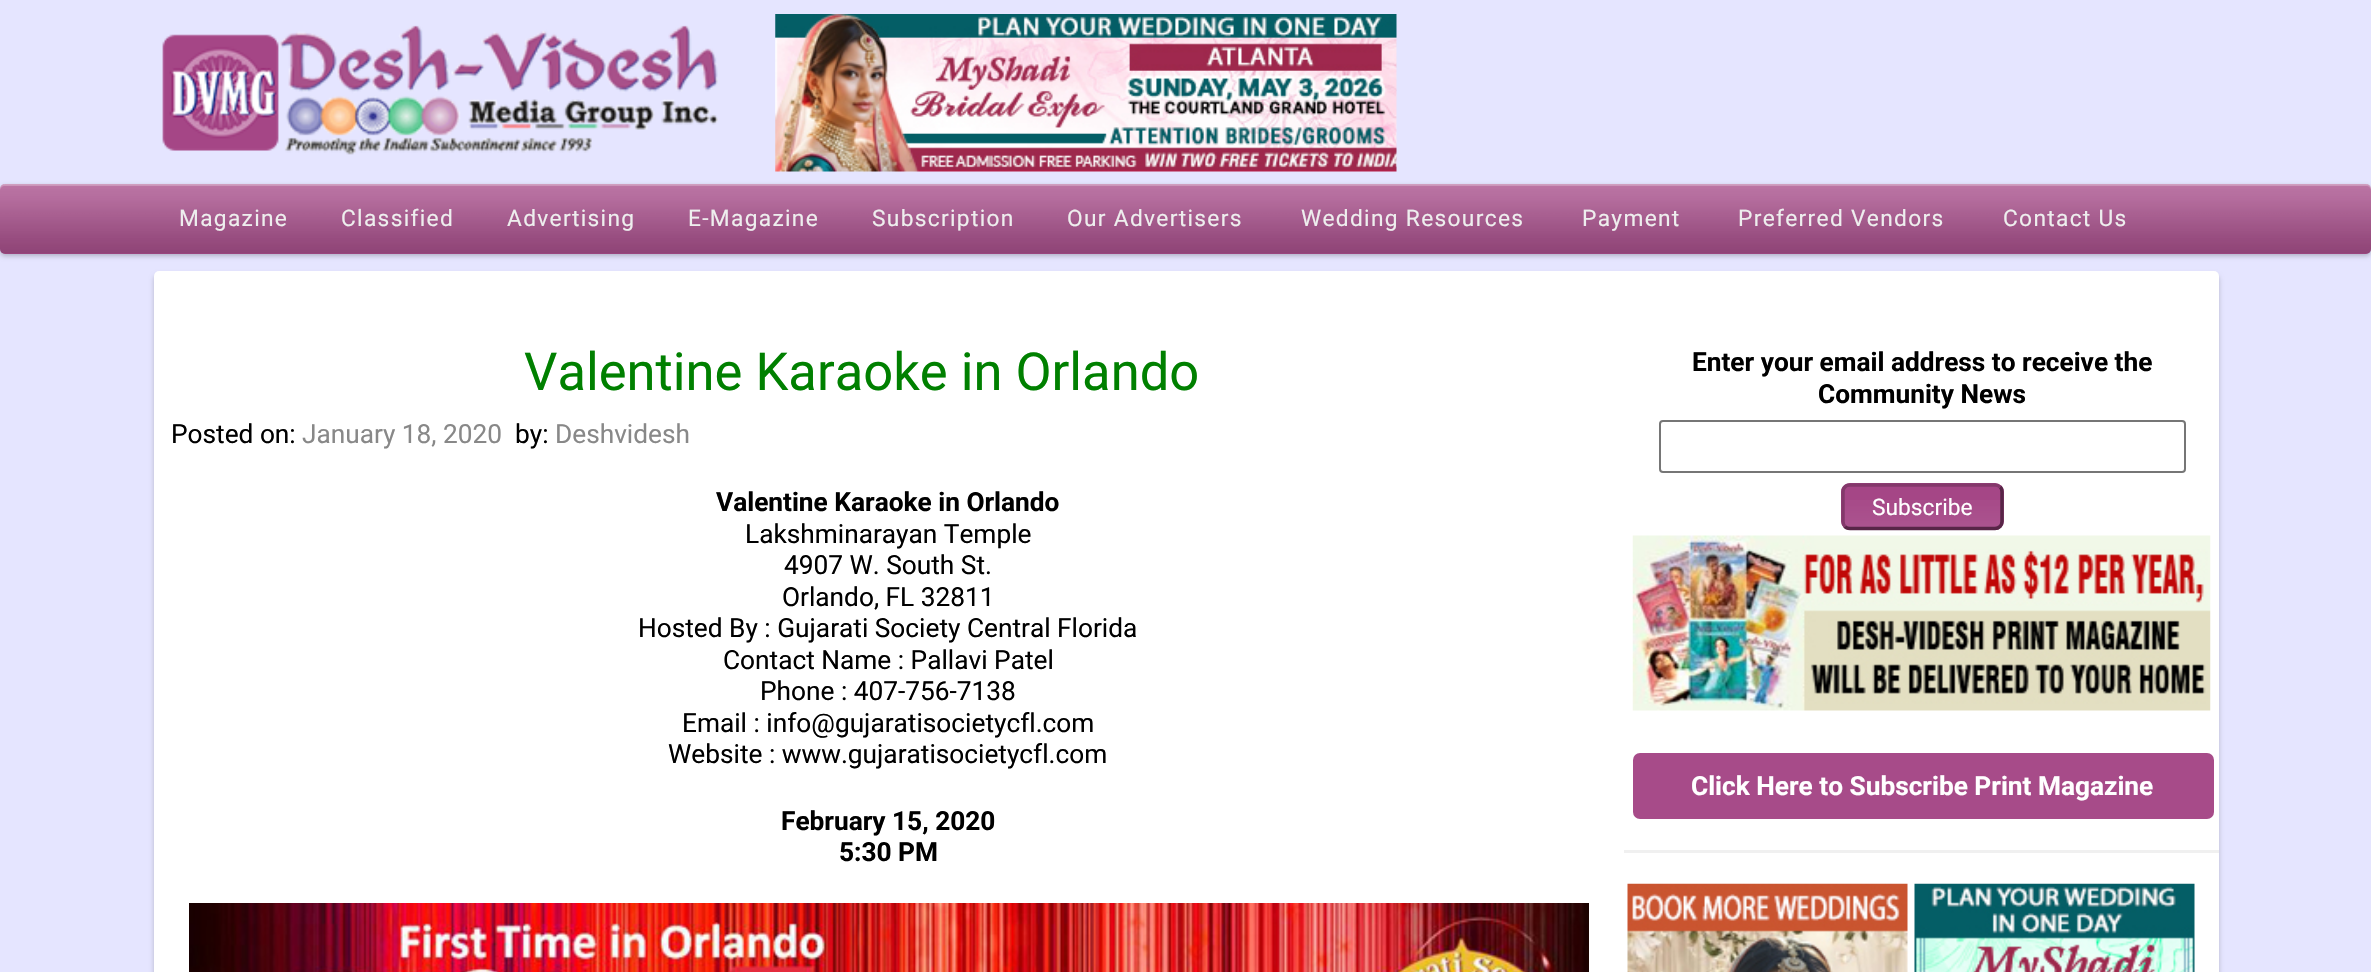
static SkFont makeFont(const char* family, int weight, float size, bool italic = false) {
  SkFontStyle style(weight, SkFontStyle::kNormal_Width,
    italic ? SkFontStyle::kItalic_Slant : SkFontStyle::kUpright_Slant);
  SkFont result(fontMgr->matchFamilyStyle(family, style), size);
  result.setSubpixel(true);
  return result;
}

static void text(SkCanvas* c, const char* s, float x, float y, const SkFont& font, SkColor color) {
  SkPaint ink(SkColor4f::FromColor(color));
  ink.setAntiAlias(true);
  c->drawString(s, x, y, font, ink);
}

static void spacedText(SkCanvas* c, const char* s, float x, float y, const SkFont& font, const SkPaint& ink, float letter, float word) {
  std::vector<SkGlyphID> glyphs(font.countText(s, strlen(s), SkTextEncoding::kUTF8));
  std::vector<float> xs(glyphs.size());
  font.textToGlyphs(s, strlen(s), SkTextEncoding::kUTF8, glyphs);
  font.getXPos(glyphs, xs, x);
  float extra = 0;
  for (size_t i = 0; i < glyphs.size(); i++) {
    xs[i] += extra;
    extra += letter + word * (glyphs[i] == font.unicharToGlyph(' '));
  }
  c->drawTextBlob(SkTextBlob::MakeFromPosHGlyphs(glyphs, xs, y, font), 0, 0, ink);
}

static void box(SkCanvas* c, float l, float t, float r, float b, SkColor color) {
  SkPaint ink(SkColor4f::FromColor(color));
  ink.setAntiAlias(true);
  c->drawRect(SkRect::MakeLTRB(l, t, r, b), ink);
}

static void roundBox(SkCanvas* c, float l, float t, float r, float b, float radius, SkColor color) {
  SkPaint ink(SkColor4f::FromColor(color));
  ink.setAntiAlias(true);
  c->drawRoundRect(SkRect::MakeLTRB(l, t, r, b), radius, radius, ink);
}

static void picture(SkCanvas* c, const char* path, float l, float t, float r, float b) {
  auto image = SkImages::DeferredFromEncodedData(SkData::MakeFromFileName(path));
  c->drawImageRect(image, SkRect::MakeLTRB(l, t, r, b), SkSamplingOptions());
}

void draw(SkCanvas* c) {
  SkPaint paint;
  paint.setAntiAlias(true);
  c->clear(0xffe5e5ff);
  picture(c, "img_01.png", 162, 25, 718, 155);
  picture(c, "img_02.png", 775, 14, 1397, 172);
  paint.setColor(0x3b000000);
  paint.setMaskFilter(SkMaskFilter::MakeBlur(kNormal_SkBlurStyle, 2.5f));
  c->drawRoundRect(SkRect::MakeLTRB(0, 186, 2371, 256), 5, 5, paint);
  paint.setMaskFilter(nullptr);
  roundBox(c, 0, 184, 2371, 254, 5, 0xffa54686);
  picture(c, "img_03.png", 0, 184, 2371, 254);
  paint.setColor(0x3bffffff);
  c->drawPath(SkPathBuilder().moveTo(5, 186).lineTo(2366, 186).cubicTo(2369, 186, 2371, 188, 2371, 191).lineTo(2371, 189).cubicTo(2371, 186, 2369, 184, 2366, 184).lineTo(5, 184).cubicTo(2, 184, 0, 186, 0, 189).lineTo(0, 191).cubicTo(0, 188, 2, 186, 5, 186).close().detach(), paint);
  SkFont face1 = makeFont("Roboto", 400, 22.75f);
  paint.setColor(0xffeeeeee);
  spacedText(c, "Magazine", 179, 226, face1, paint, 1.3f, 0);
  spacedText(c, "Classified", 341, 226, face1, paint, 1.3f, 0);
  spacedText(c, "Advertising", 507, 226, face1, paint, 1.3f, 0);
  spacedText(c, "E-Magazine", 688, 226, face1, paint, 1.3f, 0);
  spacedText(c, "Subscription", 872, 226, face1, paint, 1.3f, 0);
  spacedText(c, "Our Advertisers", 1067, 226, face1, paint, 1.3f, 0);
  spacedText(c, "Wedding Resources", 1301, 226, face1, paint, 1.3f, 0);
  spacedText(c, "Payment", 1582, 226, face1, paint, 1.3f, 0);
  spacedText(c, "Preferred Vendors", 1738, 226, face1, paint, 1.3f, 0);
  spacedText(c, "Contact Us", 2003, 226, face1, paint, 1.3f, 0);
  paint.setColor(0x33000000);
  paint.setMaskFilter(SkMaskFilter::MakeBlur(kNormal_SkBlurStyle, 2.5f));
  c->drawRoundRect(SkRect::MakeLTRB(154, 275, 2219, 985), 5, 5, paint);
  paint.setMaskFilter(nullptr);
  roundBox(c, 154, 271, 2219, 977, 5, 0xffffffff);
  SkFont face2 = makeFont("Roboto", 400, 52.5f);
  text(c, "Valentine Karaoke in Orlando", 524, 390, face2, 0xff008000);
  SkFont face3 = makeFont("Roboto", 400, 26.25f);
  text(c, "Posted on:", 171, 443, face3, 0xff000000);
  text(c, "January 18, 2020", 302, 443, face3, 0xff888888);
  text(c, "by:", 515, 443, face3, 0xff000000);
  text(c, "Deshvidesh", 555, 443, face3, 0xff888888);
  SkFont face4 = makeFont("Roboto", 700, 26.25f);
  text(c, "Valentine Karaoke in Orlando", 716, 511, face4, 0xff000000);
  text(c, "Lakshminarayan Temple", 745, 543, face3, 0xff000000);
  text(c, "4907 W. South St.", 784, 574, face3, 0xff000000);
  text(c, "Orlando, FL 32811", 782, 606, face3, 0xff000000);
  text(c, "Hosted By : Gujarati Society Central Florida", 638, 637, face3, 0xff000000);
  text(c, "Contact Name : Pallavi Patel", 723, 669, face3, 0xff000000);
  text(c, "Phone : 407-756-7138", 760, 700, face3, 0xff000000);
  text(c, "Email : info@gujaratisocietycfl.com", 682, 732, face3, 0xff000000);
  text(c, "Website : www.gujaratisocietycfl.com", 668, 763, face3, 0xff000000);
  text(c, "February 15, 2020", 781, 830, face4, 0xff000000);
  text(c, "5:30 PM", 839, 861, face4, 0xff000000);
  picture(c, "img_04.png", 189, 903, 1589, 972);
  box(c, 1624, 850, 2219, 853, 0xfff0f0f0);
  text(c, "Enter your email address to receive the", 1692, 371, face4, 0xff000000);
  text(c, "Community News", 1818, 403, face4, 0xff000000);
  paint.setStyle(SkPaint::kStroke_Style);
  paint.setStrokeWidth(2);
  paint.setColor(0xff767676);
  c->drawRoundRect(SkRect::MakeLTRB(1660, 421, 2185, 472), 3, 3, paint);
  roundBox(c, 1841, 483, 2004, 530, 9, 0xffa54686);
  picture(c, "img_05.png", 1841, 500, 2004, 530);
  paint.setStrokeWidth(3.5f);
  paint.setColor(0xff582547);
  c->drawPath(SkPathBuilder().moveTo(2000, 487).cubicTo(2001.5f, 488, 2002, 490, 2002, 492).lineTo(2002, 521.5f).cubicTo(2002, 523.5f, 2001.5f, 525, 2000, 526.5f).cubicTo(1998.5f, 528, 1997, 528.5f, 1995, 528.5f).lineTo(1850, 528.5f).cubicTo(1848, 528.5f, 1846, 528, 1845, 526.5f).detach(), paint);
  paint.setColor(0xff84386b);
  c->drawPath(SkPathBuilder().moveTo(1845, 526.5f).cubicTo(1843.5f, 525, 1843, 523.5f, 1843, 521.5f).lineTo(1843, 492).cubicTo(1843, 490, 1843.5f, 488, 1845, 487).cubicTo(1846, 485.5f, 1848, 485, 1850, 485).lineTo(1995, 485).cubicTo(1997, 485, 1998.5f, 485.5f, 2000, 487).detach(), paint);
  text(c, "Subscribe", 1872, 515, face1, 0xffffffff);
  picture(c, "img_06.png", 1632, 535, 2211, 711);
  roundBox(c, 1633, 753, 2214, 819, 7, 0xffa74b89);
  text(c, "Click Here to Subscribe Print Magazine", 1691, 795, face4, 0xffffffff);
  picture(c, "img_07.png", 1627, 883, 1908, 972);
  picture(c, "img_08.png", 1914, 883, 2195, 972);
}
